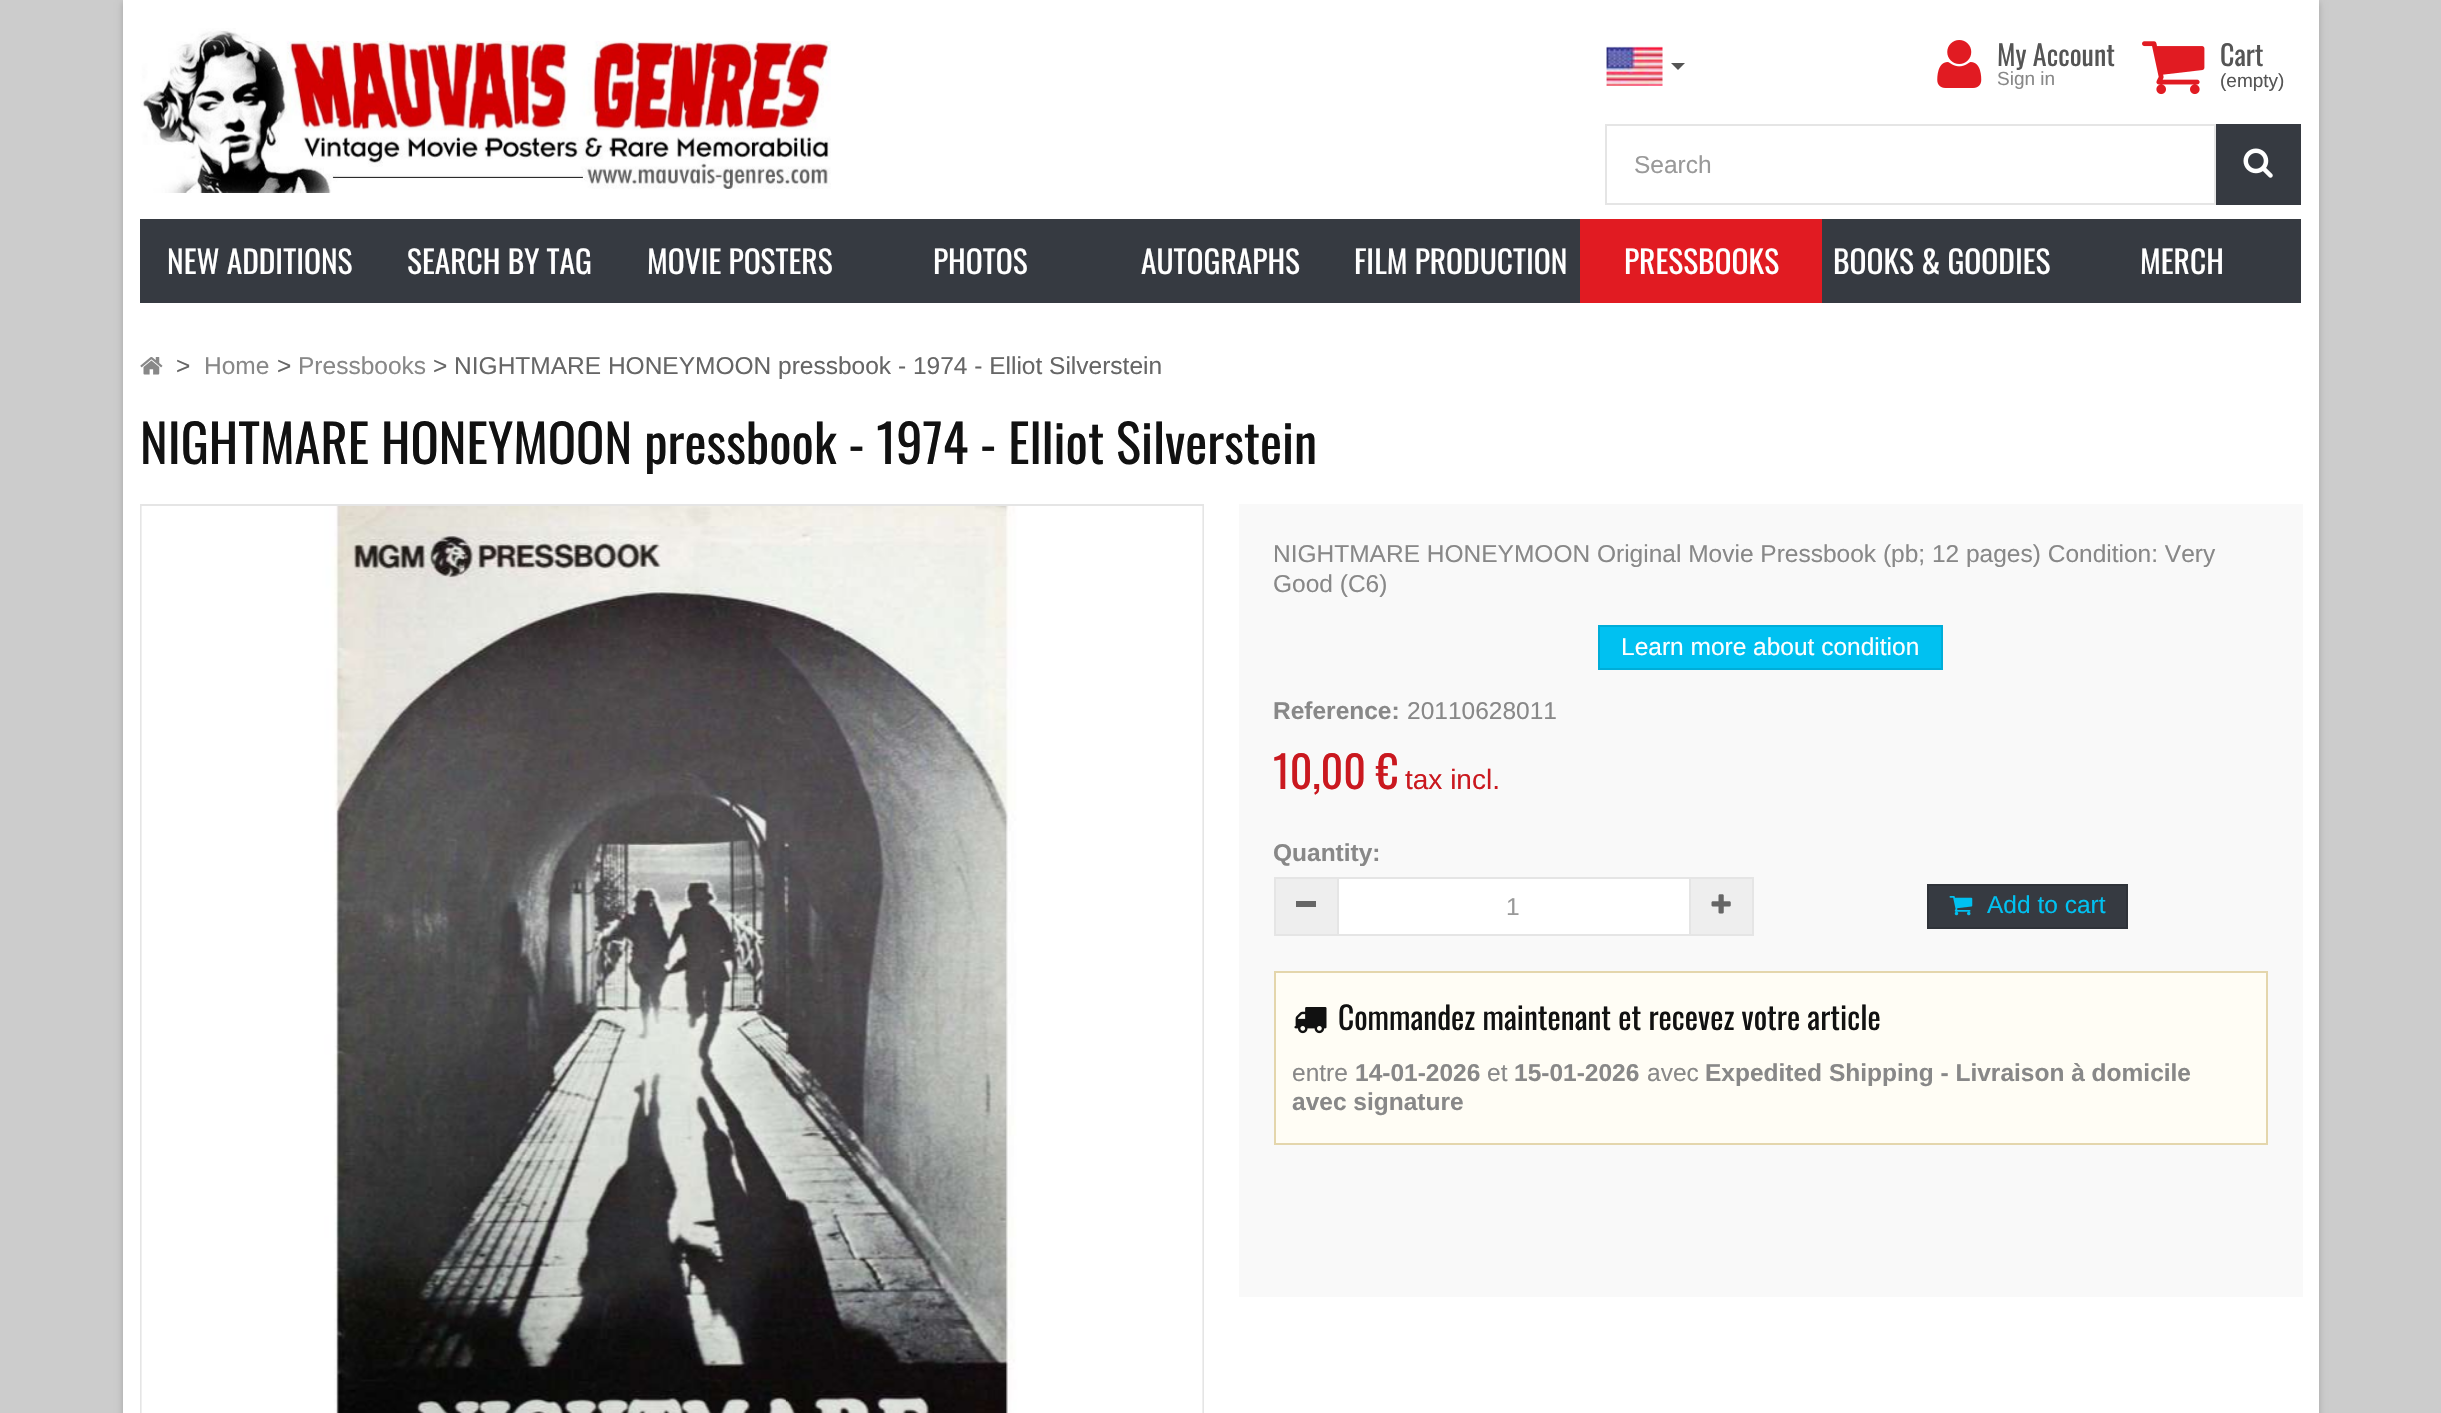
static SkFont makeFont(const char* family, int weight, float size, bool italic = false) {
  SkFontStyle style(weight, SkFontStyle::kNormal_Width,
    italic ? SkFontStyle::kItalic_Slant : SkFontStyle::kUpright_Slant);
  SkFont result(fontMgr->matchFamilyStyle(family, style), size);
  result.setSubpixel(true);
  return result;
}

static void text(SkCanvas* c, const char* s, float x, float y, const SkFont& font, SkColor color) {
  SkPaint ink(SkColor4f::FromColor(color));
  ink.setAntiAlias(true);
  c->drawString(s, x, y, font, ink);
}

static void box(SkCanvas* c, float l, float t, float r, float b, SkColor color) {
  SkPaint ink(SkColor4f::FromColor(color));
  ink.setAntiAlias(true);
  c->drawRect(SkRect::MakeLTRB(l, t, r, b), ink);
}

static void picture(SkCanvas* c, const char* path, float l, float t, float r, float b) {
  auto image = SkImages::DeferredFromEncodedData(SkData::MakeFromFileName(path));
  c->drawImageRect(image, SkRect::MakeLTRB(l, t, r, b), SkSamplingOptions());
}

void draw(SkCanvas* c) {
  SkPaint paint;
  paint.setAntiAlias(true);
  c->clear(0xffcccccc);
  paint.setColor(0x33000000);
  paint.setMaskFilter(SkMaskFilter::MakeBlur(kNormal_SkBlurStyle, 3.5f));
  c->drawRect(SkRect::MakeLTRB(123, 2, 2319, 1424), paint);
  paint.setMaskFilter(nullptr);
  box(c, 123, 0, 2319, 1413, 0xffffffff);
  picture(c, "img_01.png", 140, 28, 831, 193);
  picture(c, "img_02.png", 1606, 46, 1663, 86);
  paint.setColor(0xff555555);
  c->drawPath(SkPathBuilder().moveTo(1671, 63).lineTo(1685, 63).lineTo(1678, 70).close().detach(), paint);
  picture(c, "img_03.png", 1937, 40, 1982, 88);
  SkFont face1 = makeFont("Oswald", 400, 28);
  text(c, "My Account", 1997, 66, face1, 0xff555555);
  SkFont face2 = makeFont("Liberation Sans", 400, 19);
  text(c, "Sign in", 1997, 85, face2, 0xff888888);
  picture(c, "img_04.png", 2142, 41, 2205, 95);
  text(c, "Cart", 2220, 66, face1, 0xff555555);
  text(c, "(empty)", 2220, 87, face2, 0xff555555);
  paint.setStyle(SkPaint::kStroke_Style);
  paint.setStrokeWidth(2);
  paint.setColor(0xffe5e5e5);
  c->drawRect(SkRect::MakeLTRB(1606, 125, 2215, 204), paint);
  SkFont face3 = makeFont("Liberation Sans", 400, 24.5f);
  text(c, "Search", 1634, 173, face3, 0xff999999);
  box(c, 2216, 124, 2301, 205, 0xff363a41);
  picture(c, "img_05.png", 2243, 148, 2273, 178);
  box(c, 140, 219, 2301, 303, 0xff363a41);
  SkFont face4 = makeFont("Oswald", 400, 31.5f);
  text(c, "NEW ADDITIONS", 167, 274, face4, 0xffffffff);
  text(c, "SEARCH BY TAG", 407, 274, face4, 0xffffffff);
  text(c, "MOVIE POSTERS", 647, 274, face4, 0xffffffff);
  text(c, "PHOTOS", 933, 274, face4, 0xffffffff);
  text(c, "AUTOGRAPHS", 1141, 274, face4, 0xffffffff);
  text(c, "FILM PRODUCTION", 1354, 274, face4, 0xffffffff);
  box(c, 1580, 219, 1822, 303, 0xffe11b22);
  text(c, "PRESSBOOKS", 1624, 274, face4, 0xffffffff);
  text(c, "BOOKS & GOODIES", 1833, 274, face4, 0xffffffff);
  text(c, "MERCH", 2140, 274, face4, 0xffffffff);
  picture(c, "img_06.png", 140, 357, 163, 375);
  text(c, ">", 176, 374, face3, 0xff666666);
  text(c, "Home", 204, 374, face3, 0xff888888);
  text(c, ">", 277, 374, face3, 0xff666666);
  text(c, "Pressbooks", 298, 374, face3, 0xff888888);
  text(c, "> NIGHTMARE HONEYMOON pressbook - 1974 - Elliot Silverstein", 433, 374, face3, 0xff666666);
  SkFont face5 = makeFont("Oswald", 400, 52.5f);
  text(c, "NIGHTMARE HONEYMOON pressbook - 1974 - Elliot Silverstein", 140, 464, face5, 0xff111111);
  c->drawRect(SkRect::MakeLTRB(141, 505, 1203, 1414), paint);
  picture(c, "img_07.png", 141, 506, 1203, 1413);
  box(c, 1239, 504, 2303, 1297, 0xfff9f9f9);
  text(c, "NIGHTMARE HONEYMOON Original Movie Pressbook (pb; 12 pages) Condition: Very", 1273, 562, face3, 0xff888888);
  text(c, "Good (C6)", 1273, 592, face3, 0xff888888);
  paint.setStyle(SkPaint::kFill_Style);
  paint.setColor(0xff00c1f1);
  c->drawRect(SkRect::MakeLTRB(1599, 626, 1942, 669), paint);
  paint.setStyle(SkPaint::kStroke_Style);
  paint.setColor(0xff00add8);
  c->drawRect(SkRect::MakeLTRB(1599, 626, 1942, 669), paint);
  text(c, "Learn more about condition", 1621, 655, face3, 0xffffffff);
  SkFont face6 = makeFont("Liberation Sans", 700, 24.5f);
  text(c, "Reference:", 1273, 719, face6, 0xff888888);
  text(c, "20110628011", 1407, 719, face3, 0xff888888);
  SkFont face7 = makeFont("Oswald", 400, 44);
  text(c, "10,00 €", 1273, 789, face7, 0xffca181f);
  SkFont face8 = makeFont("Liberation Sans", 400, 28);
  text(c, "tax incl.", 1405, 789, face8, 0xffca181f);
  text(c, "Quantity:", 1273, 861, face6, 0xff888888);
  paint.setStyle(SkPaint::kFill_Style);
  paint.setColor(0xffeeeeee);
  c->drawRect(SkRect::MakeLTRB(1275, 878, 1338, 935), paint);
  paint.setStyle(SkPaint::kStroke_Style);
  paint.setColor(0xffe5e5e5);
  c->drawRect(SkRect::MakeLTRB(1275, 878, 1338, 935), paint);
  box(c, 1296, 901, 1316, 907, 0xff666666);
  paint.setStyle(SkPaint::kFill_Style);
  paint.setColor(0xffeeeeee);
  c->drawRect(SkRect::MakeLTRB(1690, 878, 1753, 935), paint);
  paint.setStyle(SkPaint::kStroke_Style);
  paint.setColor(0xffe5e5e5);
  c->drawRect(SkRect::MakeLTRB(1690, 878, 1753, 935), paint);
  paint.setStyle(SkPaint::kFill_Style);
  paint.setColor(0xffffffff);
  c->drawRect(SkRect::MakeLTRB(1338, 878, 1690, 935), paint);
  paint.setStyle(SkPaint::kStroke_Style);
  paint.setColor(0xffe5e5e5);
  c->drawRect(SkRect::MakeLTRB(1338, 878, 1690, 935), paint);
  text(c, "1", 1506, 915, face3, 0xff999999);
  picture(c, "img_08.png", 1711, 894, 1731, 914);
  paint.setStyle(SkPaint::kFill_Style);
  paint.setColor(0xff363a41);
  c->drawRect(SkRect::MakeLTRB(1928, 885, 2127, 928), paint);
  paint.setStyle(SkPaint::kStroke_Style);
  paint.setColor(0xff2f3339);
  c->drawRect(SkRect::MakeLTRB(1928, 885, 2127, 928), paint);
  picture(c, "img_09.png", 1949, 896, 1973, 916);
  text(c, "Add to cart", 1987, 913, face3, 0xff00c1f1);
  paint.setStyle(SkPaint::kFill_Style);
  paint.setColor(0xfffffdf5);
  c->drawRect(SkRect::MakeLTRB(1275, 972, 2267, 1144), paint);
  paint.setStyle(SkPaint::kStroke_Style);
  paint.setColor(0xffe4d6ac);
  c->drawRect(SkRect::MakeLTRB(1275, 972, 2267, 1144), paint);
  picture(c, "img_10.png", 1294, 1007, 1327, 1034);
  text(c, "Commandez maintenant et recevez votre article", 1338, 1030, face4, 0xff111111);
  text(c, "entre", 1292, 1081, face3, 0xff888888);
  text(c, "14-01-2026", 1355, 1081, face6, 0xff888888);
  text(c, "et", 1487, 1081, face3, 0xff888888);
  text(c, "15-01-2026", 1514, 1081, face6, 0xff888888);
  text(c, "avec", 1647, 1081, face3, 0xff888888);
  text(c, "Expedited Shipping - Livraison à domicile", 1705, 1081, face6, 0xff888888);
  text(c, "avec signature", 1292, 1110, face6, 0xff888888);
}
